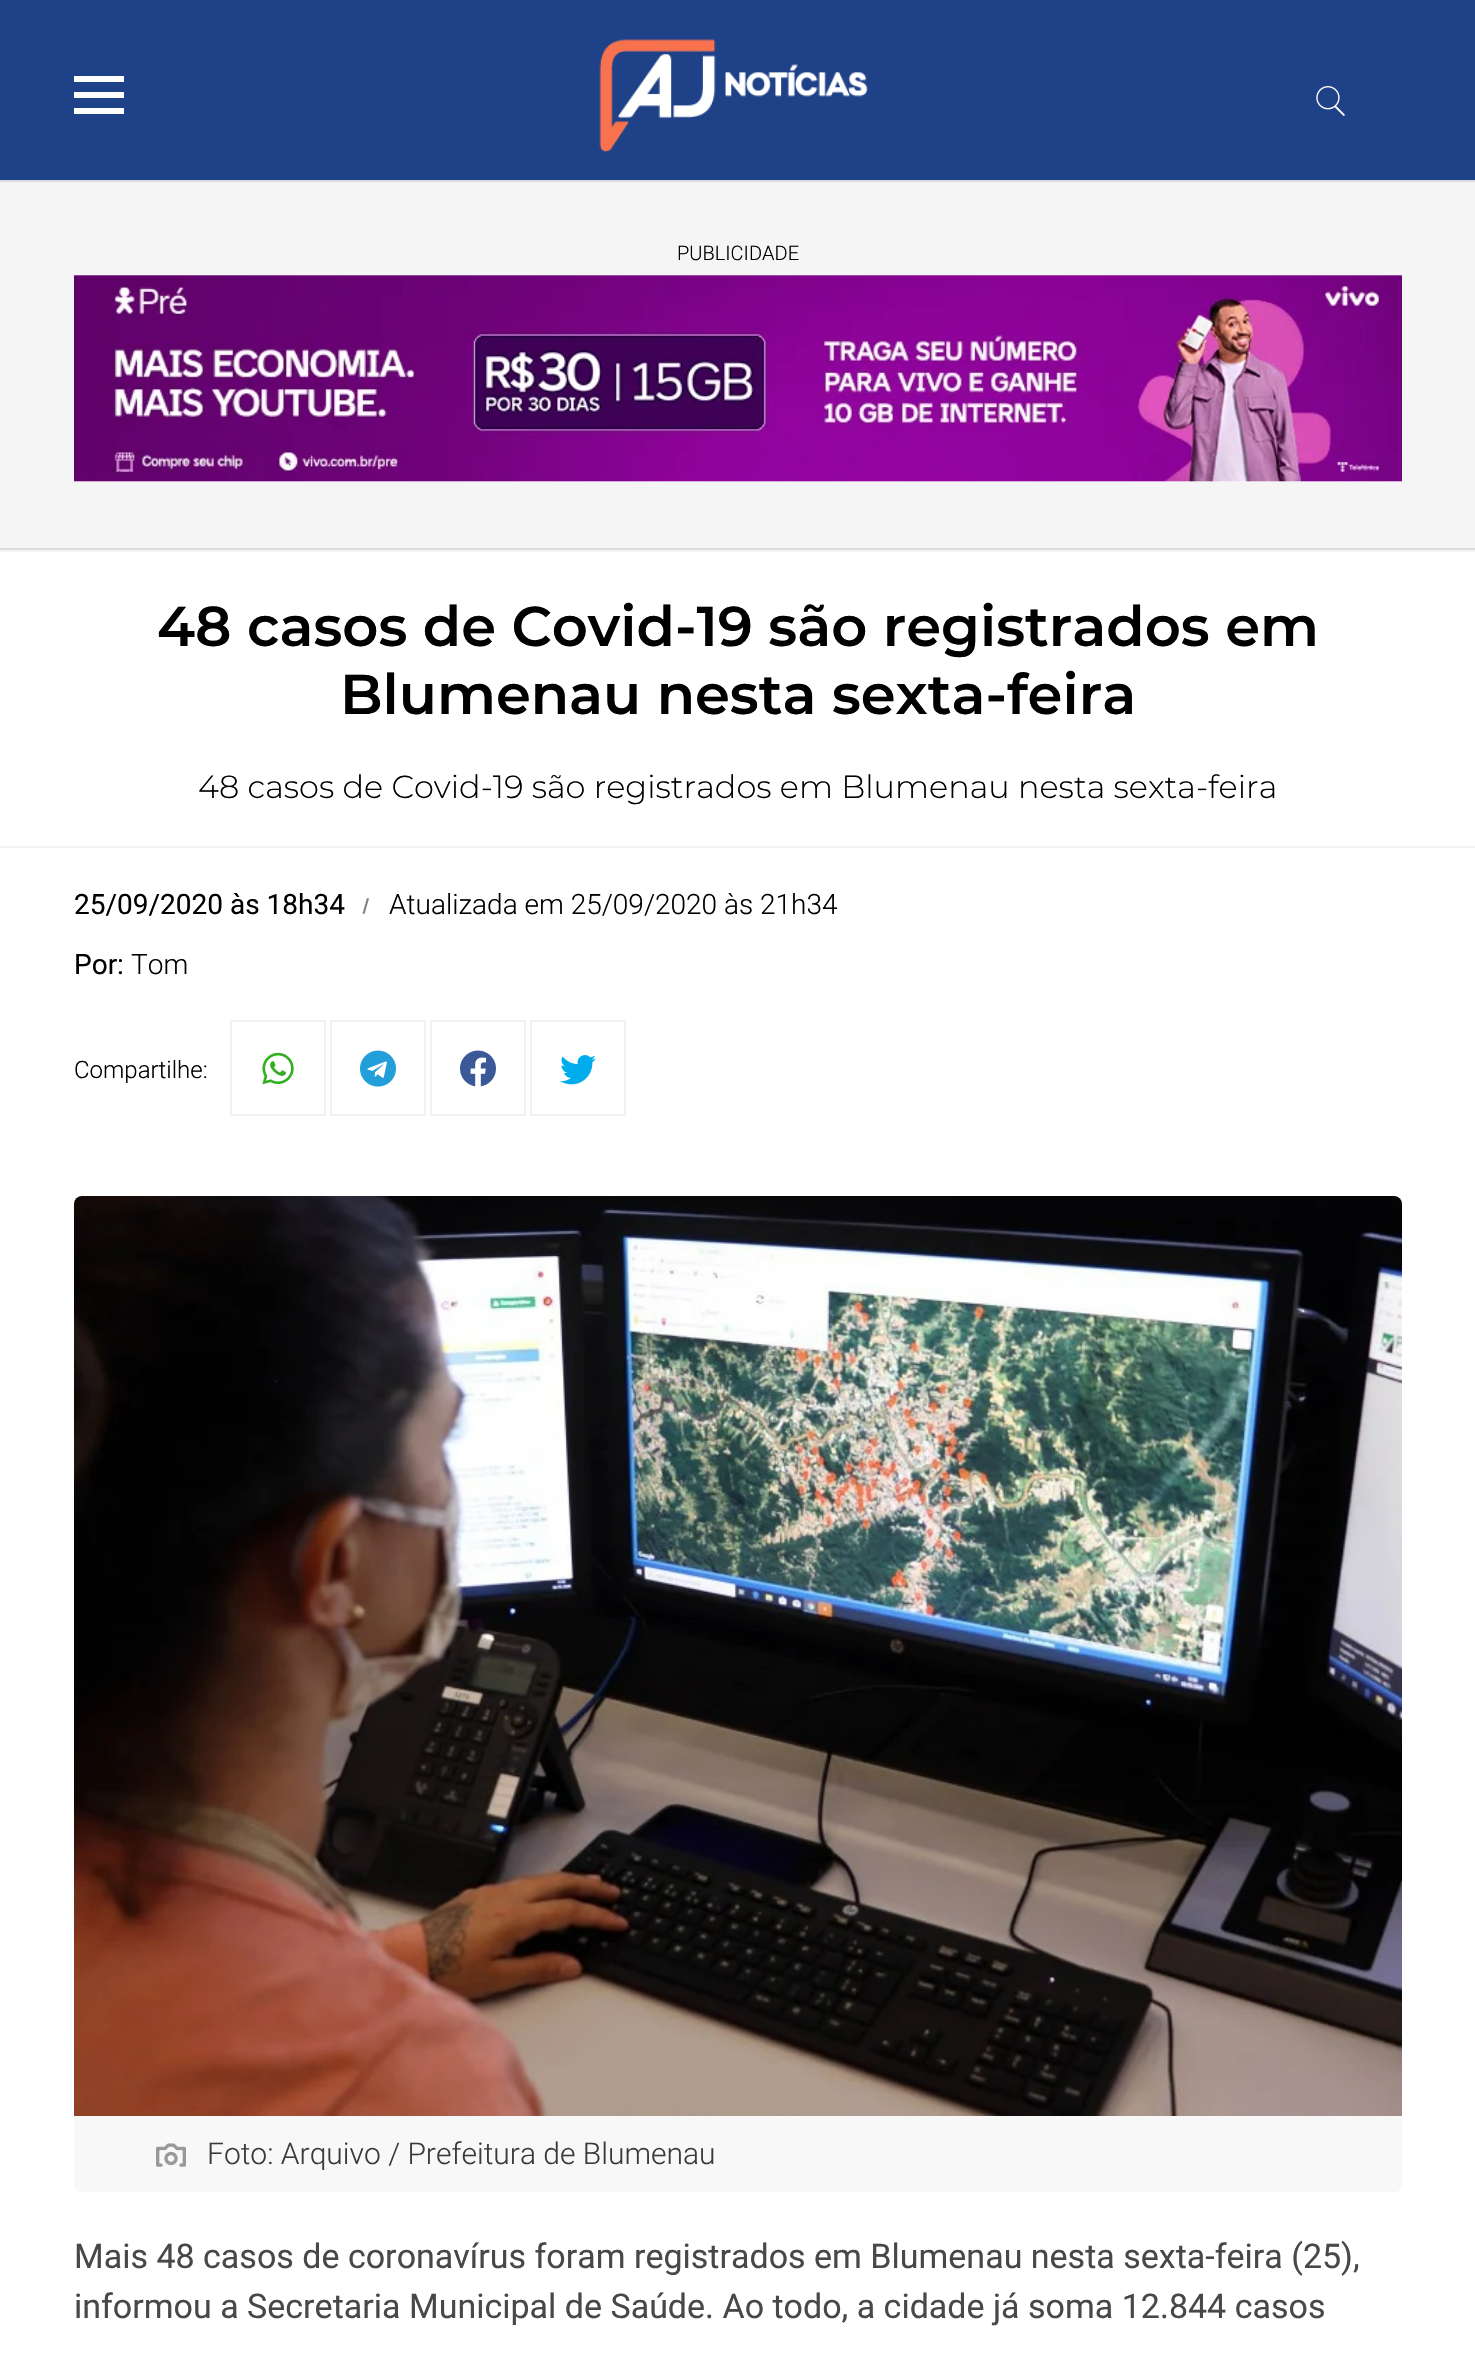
static SkFont makeFont(const char* family, int weight, float size, bool italic = false) {
  SkFontStyle style(weight, SkFontStyle::kNormal_Width,
    italic ? SkFontStyle::kItalic_Slant : SkFontStyle::kUpright_Slant);
  SkFont result(fontMgr->matchFamilyStyle(family, style), size);
  result.setSubpixel(true);
  return result;
}

static void text(SkCanvas* c, const char* s, float x, float y, const SkFont& font, SkColor color) {
  SkPaint ink(SkColor4f::FromColor(color));
  ink.setAntiAlias(true);
  c->drawString(s, x, y, font, ink);
}

static void box(SkCanvas* c, float l, float t, float r, float b, SkColor color) {
  SkPaint ink(SkColor4f::FromColor(color));
  ink.setAntiAlias(true);
  c->drawRect(SkRect::MakeLTRB(l, t, r, b), ink);
}

static void picture(SkCanvas* c, const char* path, float l, float t, float r, float b) {
  auto image = SkImages::DeferredFromEncodedData(SkData::MakeFromFileName(path));
  c->drawImageRect(image, SkRect::MakeLTRB(l, t, r, b), SkSamplingOptions());
}

void draw(SkCanvas* c) {
  SkPaint paint;
  paint.setAntiAlias(true);
  c->clear(0xff1f4187);
  box(c, 74, 76, 124, 82, 0xffffffff);
  box(c, 74, 92, 124, 98, 0xffffffff);
  box(c, 74, 108, 124, 114, 0xffffffff);
  picture(c, "img_01.png", 599, 39, 868, 153);
  picture(c, "img_02.png", 1316, 86, 1345, 116);
  box(c, 0, 182, 1475, 548, 0xfff5f5f5);
  box(c, 0, 180, 1475, 182, 0xffdddddd);
  box(c, 0, 548, 1475, 550, 0xffdddddd);
  SkFont face1 = makeFont("Roboto", 300, 20);
  text(c, "PUBLICIDADE", 677, 260, face1, 0xff000000);
  picture(c, "img_03.png", 74, 275, 1402, 482);
  box(c, 0, 552, 1475, 2353, 0xffffffff);
  box(c, 0, 550, 1475, 552, 0xfff2f2f2);
  box(c, 0, 846, 1475, 848, 0xfff2f2f2);
  SkFont face2 = makeFont("Montserrat", 600, 56);
  text(c, "48 casos de Covid-19 são registrados em", 157, 646, face2, 0xff000000);
  text(c, "Blumenau nesta sexta-feira", 340, 714, face2, 0xff000000);
  SkFont face3 = makeFont("Montserrat", 300, 32);
  text(c, "48 casos de Covid-19 são registrados em Blumenau nesta sexta-feira", 198, 798, face3, 0xff000000);
  SkFont face4 = makeFont("Roboto", 400, 28);
  text(c, "25/09/2020 às 18h34", 74, 914, face4, 0xff000000);
  paint.setColor(0xff808080);
  c->drawPath(SkPathBuilder().moveTo(367, 898).lineTo(369, 898.5f).lineTo(364.5f, 914).lineTo(362.5f, 913.5f).close().detach(), paint);
  SkFont face5 = makeFont("Roboto", 300, 28);
  text(c, "Atualizada em 25/09/2020 às 21h34", 389, 914, face5, 0xff000000);
  text(c, "Por:", 74, 974, face4, 0xff000000);
  text(c, "Tom", 131, 974, face5, 0xff000000);
  SkFont face6 = makeFont("Roboto", 300, 24);
  text(c, "Compartilhe:", 74, 1078, face6, 0xff000000);
  paint.setStyle(SkPaint::kStroke_Style);
  paint.setStrokeWidth(2);
  paint.setColor(0xfff2f2f2);
  c->drawRect(SkRect::MakeLTRB(231, 1021, 325, 1115), paint);
  picture(c, "img_04.png", 262, 1052, 294, 1085);
  c->drawRect(SkRect::MakeLTRB(331, 1021, 425, 1115), paint);
  picture(c, "img_05.png", 360, 1050, 396, 1087);
  c->drawRect(SkRect::MakeLTRB(431, 1021, 525, 1115), paint);
  picture(c, "img_06.png", 460, 1050, 496, 1087);
  c->drawRect(SkRect::MakeLTRB(531, 1021, 625, 1115), paint);
  picture(c, "img_07.png", 560, 1055, 596, 1085);
  picture(c, "img_08.png", 74, 1196, 1402, 2116);
  paint.setStyle(SkPaint::kFill_Style);
  paint.setColor(0xfff8f8f8);
  c->drawPath(SkPathBuilder().moveTo(74, 2116).lineTo(1402, 2116).lineTo(1402, 2184).cubicTo(1402, 2188.5f, 1398.5f, 2192, 1394, 2192).lineTo(82, 2192).cubicTo(77.5f, 2192, 74, 2188.5f, 74, 2184).close().detach(), paint);
  picture(c, "img_09.png", 156, 2143, 186, 2167);
  SkFont face7 = makeFont("Roboto", 300, 30);
  text(c, "Foto: Arquivo / Prefeitura de Blumenau", 207, 2164, face7, 0xff3a3a3a);
  SkFont face8 = makeFont("Roboto", 400, 34);
  text(c, "Mais 48 casos de coronavírus foram registrados em Blumenau nesta sexta-feira (25),", 74, 2268, face8, 0xff484848);
  text(c, "informou a Secretaria Municipal de Saúde. Ao todo, a cidade já soma 12.844 casos", 74, 2318, face8, 0xff484848);
}
